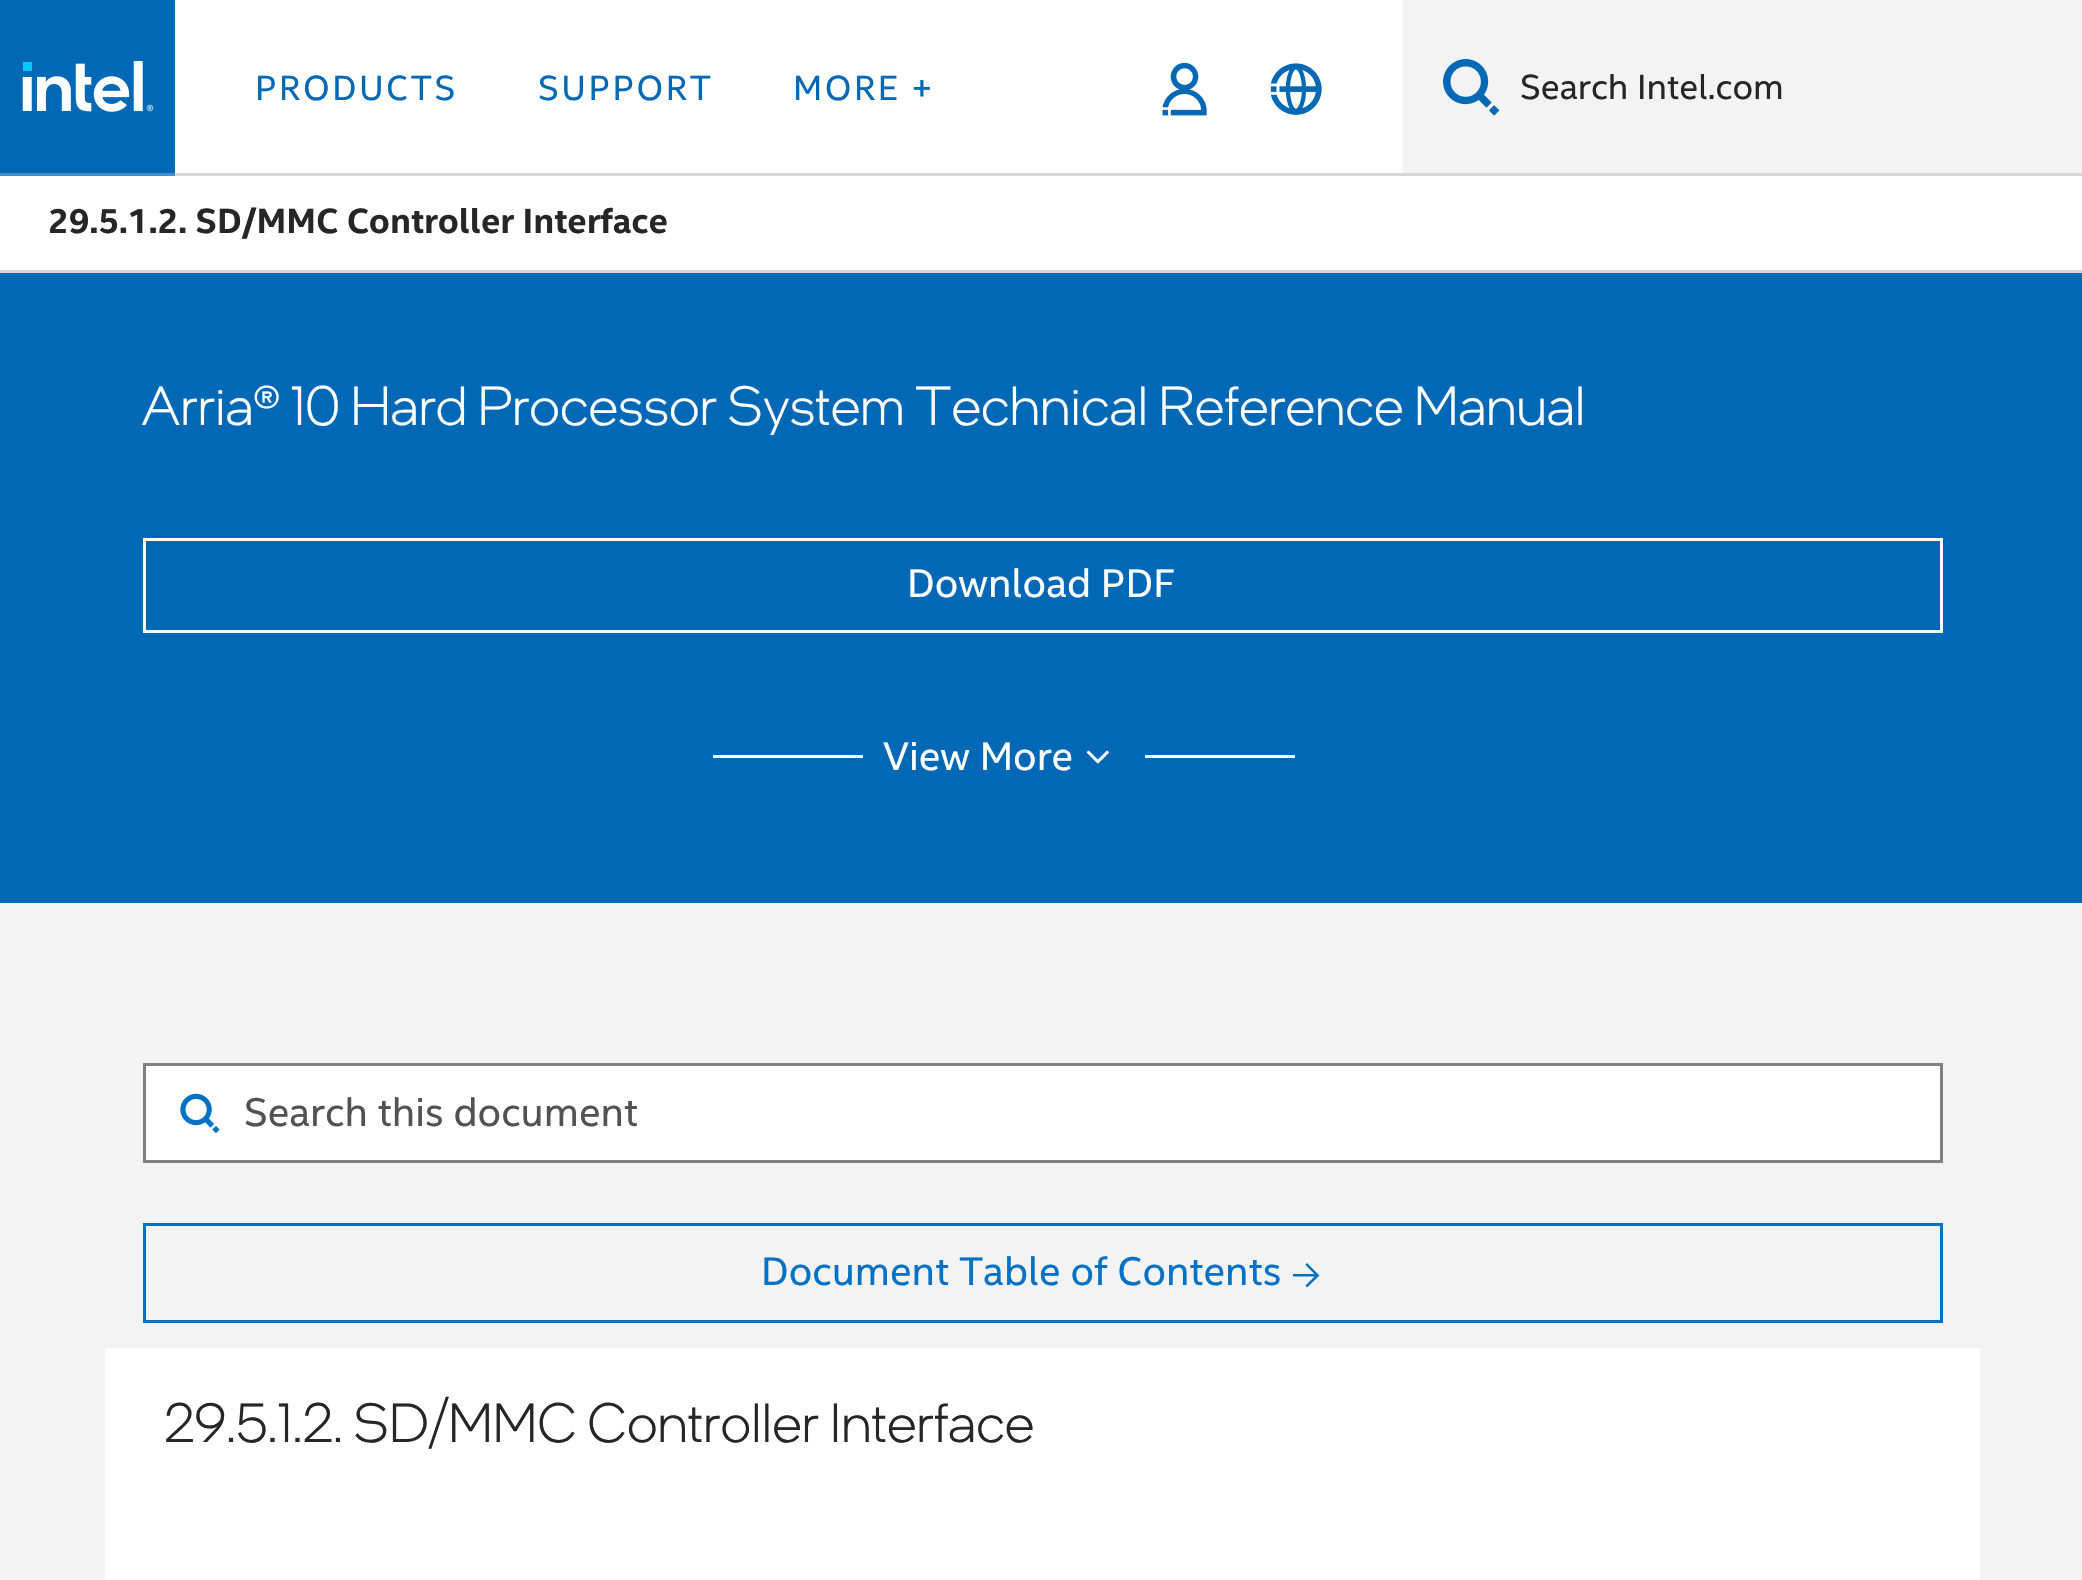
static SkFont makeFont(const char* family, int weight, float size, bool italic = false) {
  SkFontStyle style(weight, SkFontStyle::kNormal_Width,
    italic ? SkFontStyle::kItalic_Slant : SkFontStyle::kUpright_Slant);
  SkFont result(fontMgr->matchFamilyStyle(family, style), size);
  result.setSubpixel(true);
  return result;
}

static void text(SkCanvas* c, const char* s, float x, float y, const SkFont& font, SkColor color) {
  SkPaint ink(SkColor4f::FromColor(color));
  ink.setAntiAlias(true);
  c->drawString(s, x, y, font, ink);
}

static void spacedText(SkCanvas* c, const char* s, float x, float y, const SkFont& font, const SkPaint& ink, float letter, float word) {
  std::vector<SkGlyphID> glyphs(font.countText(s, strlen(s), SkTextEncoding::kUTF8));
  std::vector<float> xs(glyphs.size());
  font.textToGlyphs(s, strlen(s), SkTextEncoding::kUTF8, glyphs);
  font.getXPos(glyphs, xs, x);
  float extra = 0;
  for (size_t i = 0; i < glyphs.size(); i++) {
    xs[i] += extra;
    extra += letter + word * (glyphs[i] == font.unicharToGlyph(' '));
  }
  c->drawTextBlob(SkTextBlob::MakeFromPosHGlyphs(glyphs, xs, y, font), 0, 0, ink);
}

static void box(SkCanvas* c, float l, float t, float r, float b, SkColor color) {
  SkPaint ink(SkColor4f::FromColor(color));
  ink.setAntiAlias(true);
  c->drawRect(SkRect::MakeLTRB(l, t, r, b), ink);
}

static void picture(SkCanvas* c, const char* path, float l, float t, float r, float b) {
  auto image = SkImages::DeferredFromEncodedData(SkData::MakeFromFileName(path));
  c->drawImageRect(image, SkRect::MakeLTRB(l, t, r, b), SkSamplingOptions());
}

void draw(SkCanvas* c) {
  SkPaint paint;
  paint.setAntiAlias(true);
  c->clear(0xffffffff);
  box(c, 175, 173, 2082, 176, 0xffd7d7d7);
  box(c, 0, 0, 175, 173, 0xff0068b5);
  picture(c, "img_01.png", 22, 61, 154, 112);
  box(c, 0, 173, 175, 176, 0xff4290cb);
  SkFont face1 = makeFont("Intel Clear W", 400, 35);
  paint.setColor(0xff0068b5);
  spacedText(c, "PRODUCTS", 255, 100, face1, paint, 2.5f, 0);
  spacedText(c, "SUPPORT", 538, 100, face1, paint, 2.5f, 0);
  spacedText(c, "MORE +", 793, 100, face1, paint, 2.5f, 0);
  picture(c, "img_02.png", 1162, 62, 1207, 116);
  picture(c, "img_03.png", 1270, 63, 1322, 115);
  box(c, 1403, 0, 2082, 173, 0xfff3f3f3);
  picture(c, "img_04.png", 1443, 59, 1500, 116);
  text(c, "Search Intel.com", 1520, 99, face1, 0xff262626);
  box(c, 0, 270, 2082, 273, 0xffd7d7d7);
  SkFont face2 = makeFont("Intel Clear W", 700, 35);
  text(c, "29.5.1.2. SD/MMC Controller Interface", 48, 233, face2, 0xff262626);
  box(c, 0, 273, 2082, 903, 0xff0068b5);
  SkFont face3 = makeFont("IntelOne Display", 300, 55);
  text(c, "Arria® 10 Hard Processor System Technical Reference Manual", 141, 425, face3, 0xffffffff);
  paint.setStyle(SkPaint::kStroke_Style);
  paint.setStrokeWidth(3);
  paint.setColor(0xffffffff);
  c->drawRect(SkRect::MakeLTRB(144.5f, 539.5f, 1941.5f, 631.5f), paint);
  SkFont face4 = makeFont("Intel Clear W", 400, 40);
  text(c, "Download PDF", 907, 597, face4, 0xffffffff);
  box(c, 713, 755, 863, 758, 0xffffffff);
  text(c, "View More", 883, 770, face4, 0xffffffff);
  picture(c, "img_05.png", 1086, 750, 1109, 764);
  box(c, 1145, 755, 1295, 758, 0xffffffff);
  box(c, 0, 903, 2082, 1580, 0xfff3f3f3);
  paint.setStyle(SkPaint::kFill_Style);
  c->drawRect(SkRect::MakeLTRB(144.5f, 1064.5f, 1941.5f, 1161.5f), paint);
  paint.setStyle(SkPaint::kStroke_Style);
  paint.setColor(0xff808080);
  c->drawRect(SkRect::MakeLTRB(144.5f, 1064.5f, 1941.5f, 1161.5f), paint);
  picture(c, "img_06.png", 180, 1093, 220, 1134);
  text(c, "Search this document", 244, 1126, face4, 0xff525252);
  paint.setColor(0xff0071c5);
  c->drawRect(SkRect::MakeLTRB(144.5f, 1224.5f, 1941.5f, 1321.5f), paint);
  text(c, "Document Table of Contents", 761, 1285, face4, 0xff0071c5);
  paint.setStyle(SkPaint::kFill_Style);
  c->drawPath(SkPathBuilder().moveTo(1305.5f, 1265).lineTo(1307, 1263).lineTo(1319.5f, 1275.5f).lineTo(1307, 1287.5f).lineTo(1305.5f, 1285.5f).lineTo(1314.5f, 1276.5f).lineTo(1293, 1276.5f).lineTo(1293, 1274).lineTo(1314.5f, 1274).close().detach(), paint);
  box(c, 105, 1348, 1980, 1580, 0xffffffff);
  text(c, "29.5.1.2. SD/MMC Controller Interface", 164, 1442, face3, 0xff262626);
}
